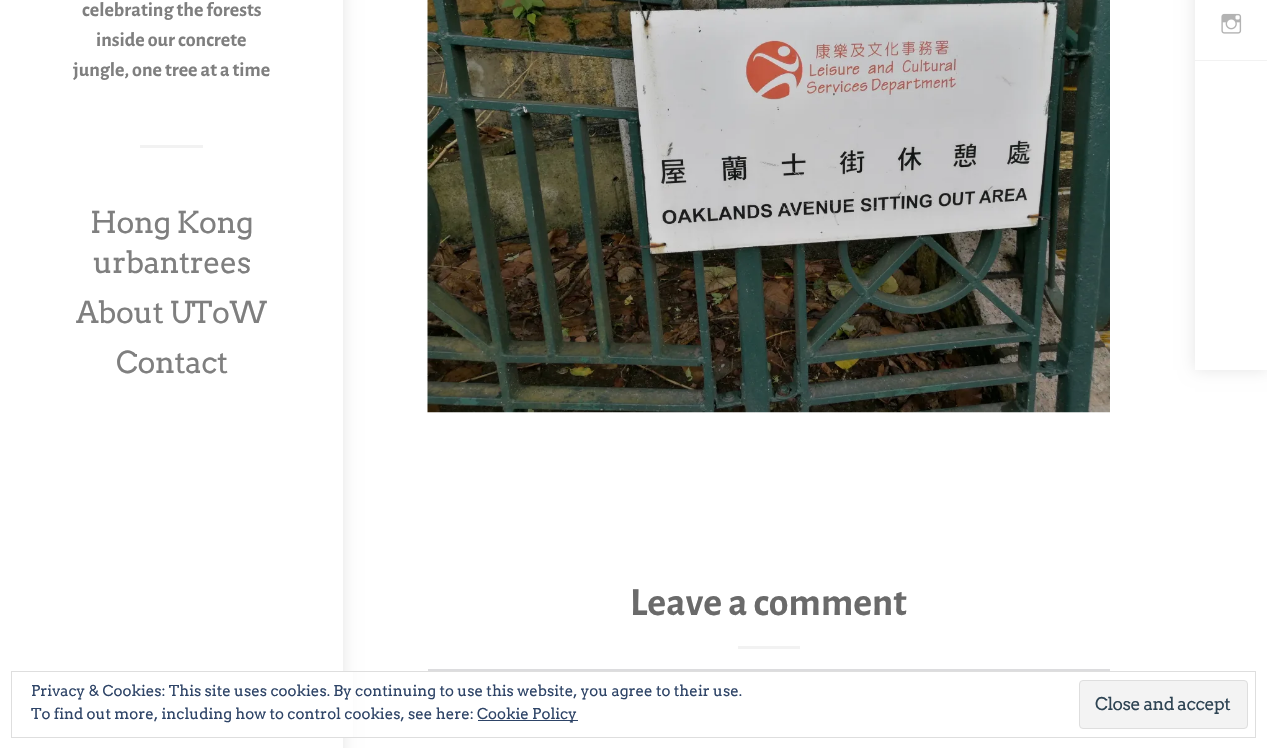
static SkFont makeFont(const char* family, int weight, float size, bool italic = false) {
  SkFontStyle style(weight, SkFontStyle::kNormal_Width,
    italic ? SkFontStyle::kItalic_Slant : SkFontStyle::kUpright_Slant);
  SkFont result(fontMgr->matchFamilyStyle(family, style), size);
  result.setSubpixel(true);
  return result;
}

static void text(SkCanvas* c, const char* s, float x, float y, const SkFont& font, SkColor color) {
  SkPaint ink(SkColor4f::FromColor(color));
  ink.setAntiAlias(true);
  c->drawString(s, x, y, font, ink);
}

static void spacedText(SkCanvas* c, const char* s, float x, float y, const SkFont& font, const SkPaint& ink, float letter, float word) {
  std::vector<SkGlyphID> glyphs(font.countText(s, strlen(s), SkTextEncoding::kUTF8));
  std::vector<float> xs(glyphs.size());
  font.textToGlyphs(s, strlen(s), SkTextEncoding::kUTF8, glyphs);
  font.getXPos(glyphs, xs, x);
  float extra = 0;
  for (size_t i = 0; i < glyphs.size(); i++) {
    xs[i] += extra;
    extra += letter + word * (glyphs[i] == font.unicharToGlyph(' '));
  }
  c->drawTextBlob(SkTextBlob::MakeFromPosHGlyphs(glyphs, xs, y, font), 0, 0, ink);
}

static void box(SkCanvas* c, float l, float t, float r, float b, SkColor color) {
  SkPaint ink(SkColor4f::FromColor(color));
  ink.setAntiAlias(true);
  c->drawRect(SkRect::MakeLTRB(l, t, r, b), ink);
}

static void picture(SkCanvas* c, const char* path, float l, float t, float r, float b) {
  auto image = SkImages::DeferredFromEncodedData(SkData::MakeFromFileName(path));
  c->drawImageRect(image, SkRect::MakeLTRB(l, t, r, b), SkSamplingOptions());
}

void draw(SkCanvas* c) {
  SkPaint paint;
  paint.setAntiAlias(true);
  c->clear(0xffffffff);
  paint.setColor(0x1a000000);
  paint.setMaskFilter(SkMaskFilter::MakeBlur(kNormal_SkBlurStyle, 7.5f));
  c->drawRect(SkRect::MakeLTRB(0, -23, 343, 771), paint);
  paint.setMaskFilter(nullptr);
  box(c, 0, 0, 343, 748, 0xffffffff);
  SkFont face1 = makeFont("Alegreya Sans", 700, 20);
  text(c, "celebrating the forests", 82, 16, face1, 0xff7f7f7f);
  text(c, "inside our concrete", 96, 46, face1, 0xff7f7f7f);
  text(c, "jungle, one tree at a time", 73, 76, face1, 0xff7f7f7f);
  box(c, 140, 145, 203, 148, 0xfff2f2f2);
  SkFont face2 = makeFont("Arvo", 400, 30);
  paint.setColor(0xff7f7f7f);
  spacedText(c, "Hong Kong", 90, 233, face2, paint, -0.5f, 0);
  spacedText(c, "urbantrees", 93, 273, face2, paint, -0.5f, 0);
  spacedText(c, "About UToW", 76, 323, face2, paint, -0.5f, 0);
  spacedText(c, "Contact", 116, 373, face2, paint, -0.5f, 0);
  picture(c, "img_01.png", 427, 0, 1110, 413);
  SkFont face3 = makeFont("Alegreya Sans", 700, 40);
  text(c, "Leave a comment", 630, 615, face3, 0xff6a6a6a);
  box(c, 738, 646, 800, 649, 0xfff2f2f2);
  box(c, 428, 669, 1110, 671, 0xffdcdcde);
  c->save();
  c->clipPath(SkPathBuilder(SkPathFillType::kEvenOdd).moveTo(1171, 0).lineTo(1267, 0).lineTo(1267, 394).lineTo(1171, 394).close().moveTo(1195, -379).lineTo(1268, -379).lineTo(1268, 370).lineTo(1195, 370).close().detach(), true);
  paint.setColor(0x1a000000);
  paint.setMaskFilter(SkMaskFilter::MakeBlur(kNormal_SkBlurStyle, 7.5f));
  c->drawRect(SkRect::MakeLTRB(1195, -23, 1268, 370), paint);
  paint.setMaskFilter(nullptr);
  c->restore();
  box(c, 1195, 60, 1267, 61, 0xfff2f2f2);
  picture(c, "img_02.png", 1221, 13, 1242, 34);
  box(c, 343, 672, 353, 737, 0xffffffff);
  paint.setStyle(SkPaint::kStroke_Style);
  paint.setStrokeWidth(1);
  paint.setColor(0xffdedede);
  c->drawRect(SkRect::MakeLTRB(11.5f, 671.5f, 1255.5f, 737.5f), paint);
  SkFont face4 = makeFont("Arvo", 400, 15);
  text(c, "Privacy & Cookies: This site uses cookies. By continuing to use this website, you agree to their use.", 31, 696, face4, 0xff2e4467);
  text(c, "To find out more, including how to control cookies, see here:", 31, 719, face4, 0xff2e4467);
  box(c, 478, 720, 578, 721, 0xff2e4467);
  text(c, "Cookie Policy", 477, 719, face4, 0xff2e4467);
  paint.setStyle(SkPaint::kFill_Style);
  paint.setColor(0xfff3f3f3);
  c->drawRoundRect(SkRect::MakeLTRB(1079.5f, 680.5f, 1247.5f, 728.5f), 3.5f, 3.5f, paint);
  paint.setStyle(SkPaint::kStroke_Style);
  paint.setColor(0xffdedede);
  c->drawRoundRect(SkRect::MakeLTRB(1079.5f, 680.5f, 1247.5f, 728.5f), 3.5f, 3.5f, paint);
  SkFont face5 = makeFont("Arvo", 400, 17.5f);
  paint.setStyle(SkPaint::kFill_Style);
  paint.setColor(0xff2e4453);
  spacedText(c, "Close and accept", 1095, 710, face5, paint, -0.5f, 0);
}
